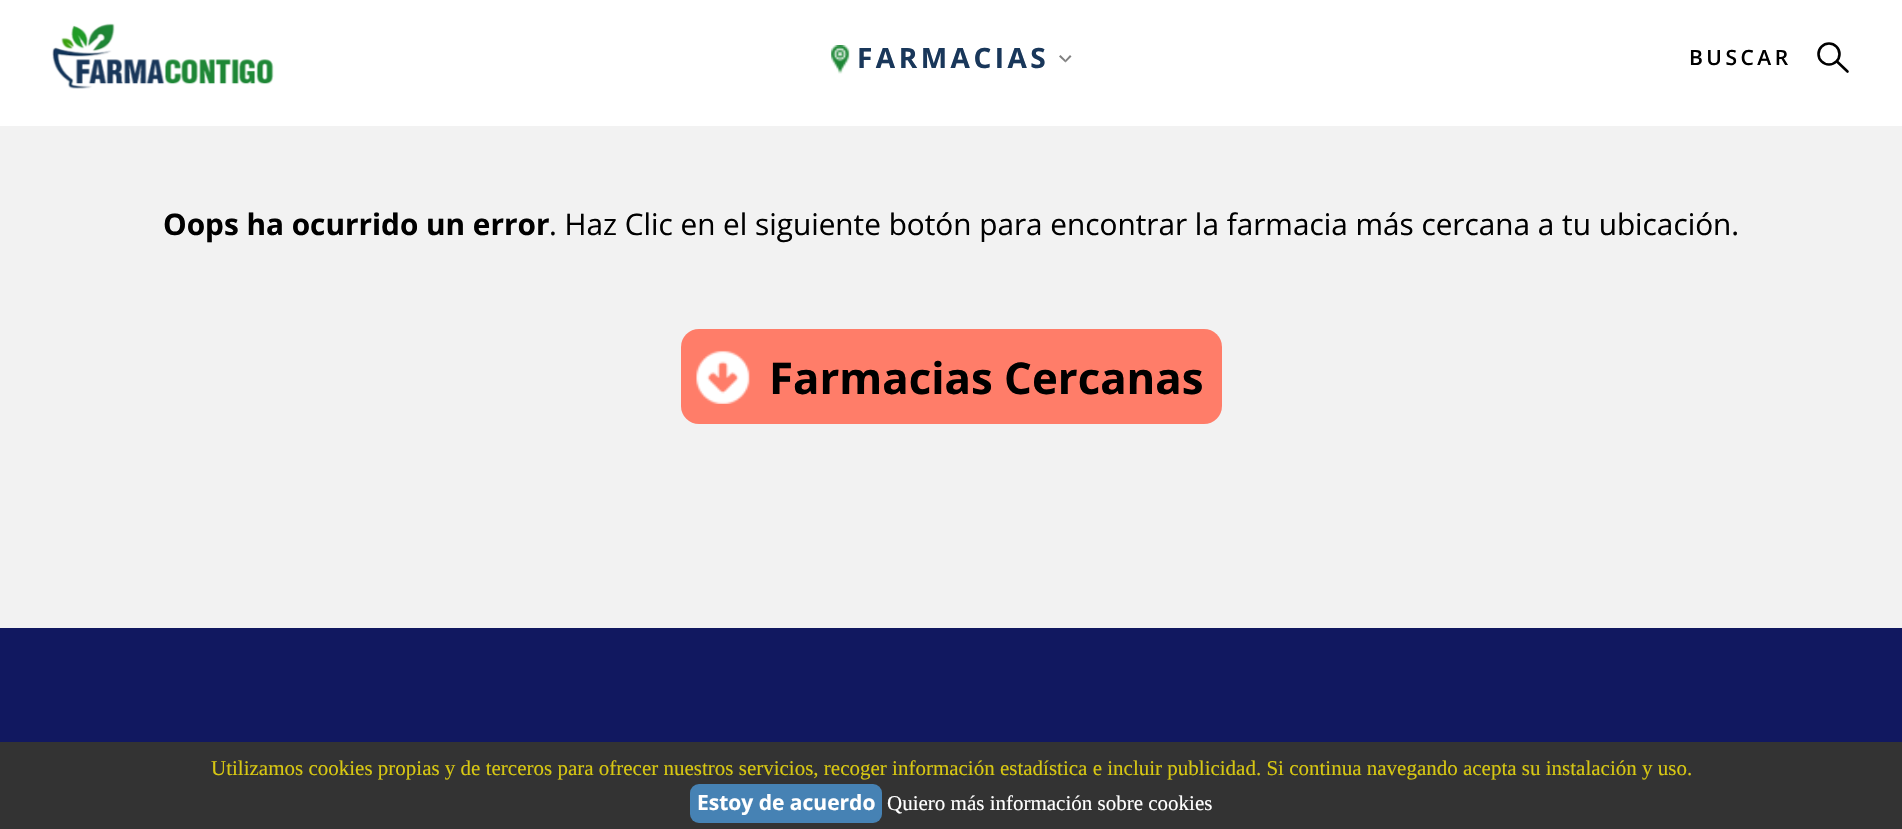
static SkFont makeFont(const char* family, int weight, float size, bool italic = false) {
  SkFontStyle style(weight, SkFontStyle::kNormal_Width,
    italic ? SkFontStyle::kItalic_Slant : SkFontStyle::kUpright_Slant);
  SkFont result(fontMgr->matchFamilyStyle(family, style), size);
  result.setSubpixel(true);
  return result;
}

static void text(SkCanvas* c, const char* s, float x, float y, const SkFont& font, SkColor color) {
  SkPaint ink(SkColor4f::FromColor(color));
  ink.setAntiAlias(true);
  c->drawString(s, x, y, font, ink);
}

static void spacedText(SkCanvas* c, const char* s, float x, float y, const SkFont& font, const SkPaint& ink, float letter, float word) {
  std::vector<SkGlyphID> glyphs(font.countText(s, strlen(s), SkTextEncoding::kUTF8));
  std::vector<float> xs(glyphs.size());
  font.textToGlyphs(s, strlen(s), SkTextEncoding::kUTF8, glyphs);
  font.getXPos(glyphs, xs, x);
  float extra = 0;
  for (size_t i = 0; i < glyphs.size(); i++) {
    xs[i] += extra;
    extra += letter + word * (glyphs[i] == font.unicharToGlyph(' '));
  }
  c->drawTextBlob(SkTextBlob::MakeFromPosHGlyphs(glyphs, xs, y, font), 0, 0, ink);
}

static void box(SkCanvas* c, float l, float t, float r, float b, SkColor color) {
  SkPaint ink(SkColor4f::FromColor(color));
  ink.setAntiAlias(true);
  c->drawRect(SkRect::MakeLTRB(l, t, r, b), ink);
}

static void roundBox(SkCanvas* c, float l, float t, float r, float b, float radius, SkColor color) {
  SkPaint ink(SkColor4f::FromColor(color));
  ink.setAntiAlias(true);
  c->drawRoundRect(SkRect::MakeLTRB(l, t, r, b), radius, radius, ink);
}

static void picture(SkCanvas* c, const char* path, float l, float t, float r, float b) {
  auto image = SkImages::DeferredFromEncodedData(SkData::MakeFromFileName(path));
  c->drawImageRect(image, SkRect::MakeLTRB(l, t, r, b), SkSamplingOptions());
}

void draw(SkCanvas* c) {
  SkPaint paint;
  paint.setAntiAlias(true);
  c->clear(0xff111860);
  box(c, 0, 0, 1902, 126, 0xffffffff);
  picture(c, "img_01.png", 52, 23, 274, 89);
  picture(c, "img_02.png", 831, 45, 850, 74);
  SkFont face1 = makeFont("Open Sans", 700, 28);
  paint.setColor(0xff19375a);
  spacedText(c, "FARMACIAS", 857, 68, face1, paint, 3.5f, 0);
  paint.setColor(0xff808080);
  c->drawPath(SkPathBuilder().moveTo(1071.5f, 56.5f).lineTo(1065.5f, 62.5f).lineTo(1065.5f, 60).lineTo(1070, 55).close().detach(), paint);
  paint.setColor(0x80000000);
  c->drawPath(SkPathBuilder().moveTo(1065.5f, 62.5f).lineTo(1059, 56.5f).lineTo(1060.5f, 55).lineTo(1065.5f, 60).close().detach(), paint);
  paint.setStyle(SkPaint::kStroke_Style);
  paint.setStrokeWidth(2.6f);
  paint.setColor(0xff000000);
  c->drawCircle(1829, 54, 10.5f, paint);
  paint.setStrokeCap(SkPaint::kRound_Cap);
  paint.setStrokeJoin(SkPaint::kRound_Join);
  c->drawPath(SkPathBuilder().moveTo(1847.5f, 71.5f).lineTo(1837, 61.5f).detach(), paint);
  SkFont face2 = makeFont("Open Sans", 600, 21);
  paint.setStyle(SkPaint::kFill_Style);
  spacedText(c, "BUSCAR", 1689, 65, face2, paint, 3.5f, 0);
  box(c, 0, 126, 1902, 628, 0xfff2f2f2);
  SkFont face3 = makeFont("Open Sans", 700, 29.75f);
  text(c, "Oops ha ocurrido un error", 163, 235, face3, 0xff000000);
  SkFont face4 = makeFont("Open Sans", 400, 29.75f);
  text(c, ". Haz Clic en el siguiente botón para encontrar la farmacia más cercana a tu ubicación.", 549, 235, face4, 0xff000000);
  roundBox(c, 681, 329, 1222, 424, 18, 0xffff7d69);
  picture(c, "img_03.png", 696, 350, 750, 404);
  SkFont face5 = makeFont("Open Sans", 700, 43.75f);
  text(c, "Farmacias Cercanas", 769, 394, face5, 0xff000000);
  box(c, 0, 742, 1902, 829, 0xff333333);
  SkFont face6 = makeFont("Liberation Serif", 400, 21);
  text(c, "Utilizamos cookies propias y de terceros para ofrecer nuestros servicios, recoger información estadística e incluir publicidad. Si continua navegando acepta su instalación y uso.", 211, 775, face6, 0xffd7c712);
  roundBox(c, 690, 784, 882, 823, 9, 0xff4682b4);
  SkFont face7 = makeFont("Open Sans", 700, 21);
  text(c, "Estoy de acuerdo", 697, 810, face7, 0xffffffff);
  text(c, "Quiero más información sobre cookies", 887, 810, face6, 0xffffffff);
}
